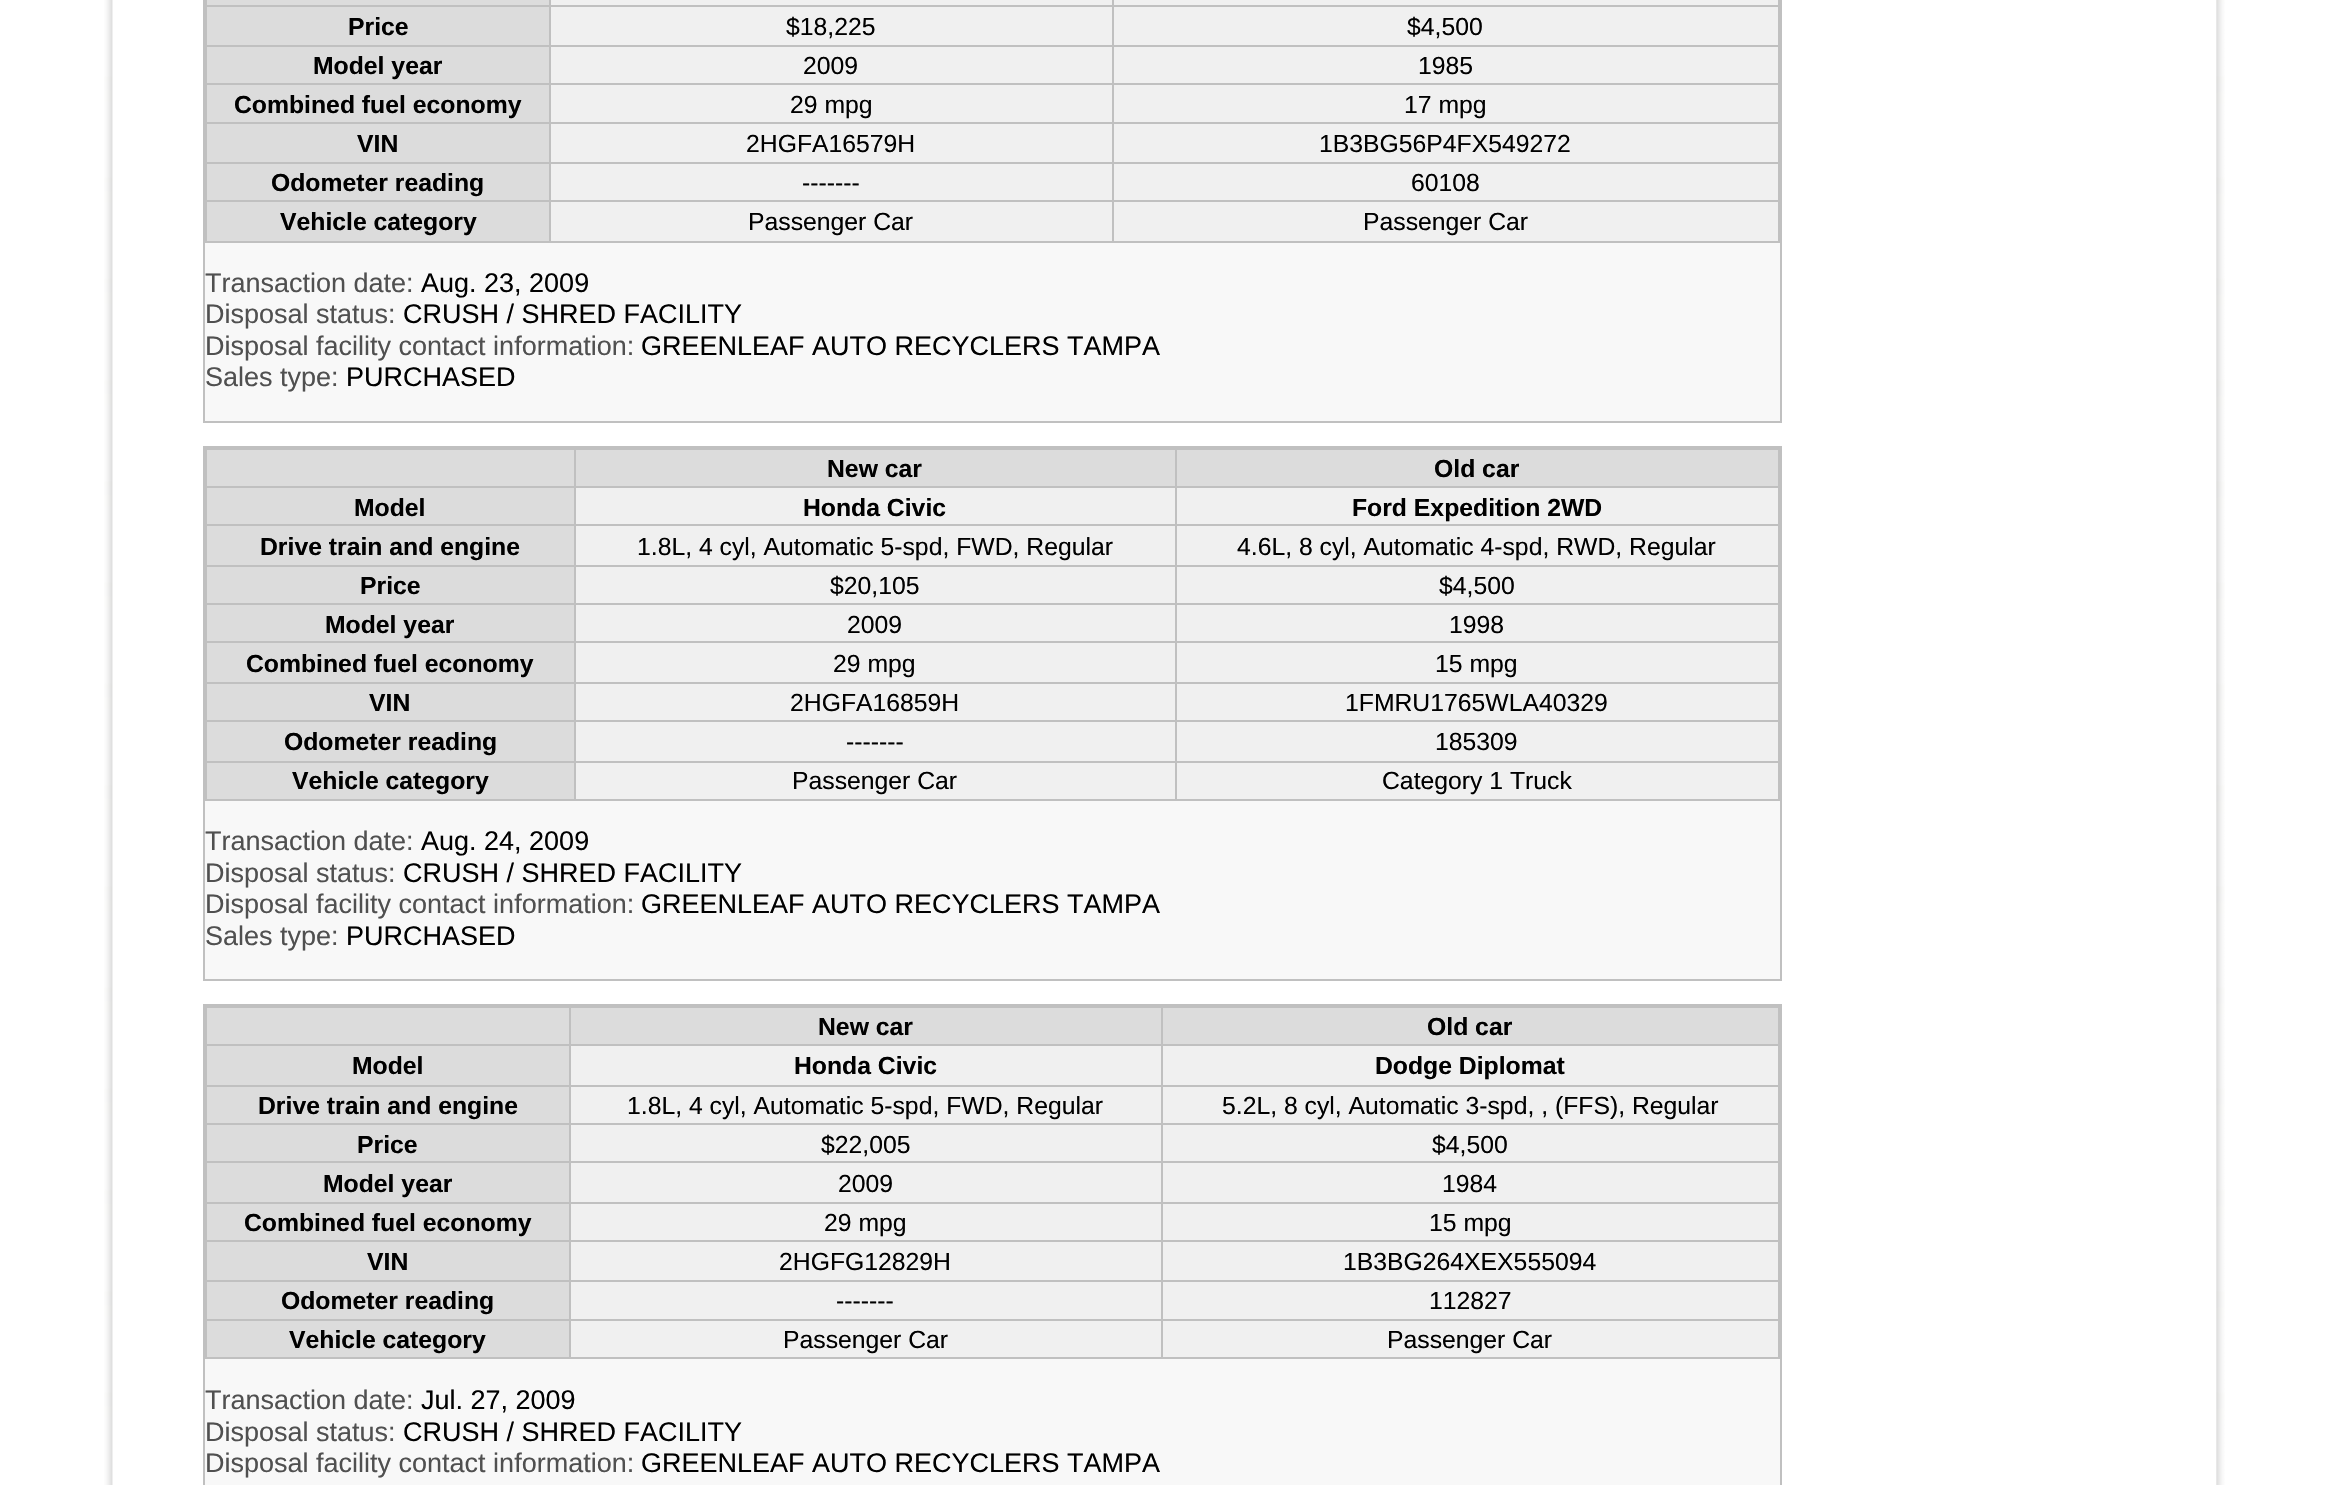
static SkFont makeFont(const char* family, int weight, float size, bool italic = false) {
  SkFontStyle style(weight, SkFontStyle::kNormal_Width,
    italic ? SkFontStyle::kItalic_Slant : SkFontStyle::kUpright_Slant);
  SkFont result(fontMgr->matchFamilyStyle(family, style), size);
  result.setSubpixel(true);
  return result;
}

static void text(SkCanvas* c, const char* s, float x, float y, const SkFont& font, SkColor color) {
  SkPaint ink(SkColor4f::FromColor(color));
  ink.setAntiAlias(true);
  c->drawString(s, x, y, font, ink);
}

static void box(SkCanvas* c, float l, float t, float r, float b, SkColor color) {
  SkPaint ink(SkColor4f::FromColor(color));
  ink.setAntiAlias(true);
  c->drawRect(SkRect::MakeLTRB(l, t, r, b), ink);
}

static void picture(SkCanvas* c, const char* path, float l, float t, float r, float b) {
  auto image = SkImages::DeferredFromEncodedData(SkData::MakeFromFileName(path));
  c->drawImageRect(image, SkRect::MakeLTRB(l, t, r, b), SkSamplingOptions());
}

void draw(SkCanvas* c) {
  SkPaint paint;
  paint.setAntiAlias(true);
  c->clear(0xffffffff);
  picture(c, "img_01.png", 104, 0, 113, 1485);
  box(c, 205, 243, 1780, 421, 0xfff8f8f8);
  paint.setStyle(SkPaint::kStroke_Style);
  paint.setStrokeWidth(2);
  paint.setColor(0xffc0c0c0);
  c->drawRect(SkRect::MakeLTRB(204, -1, 1781, 422), paint);
  box(c, 551, 0, 1778, 241, 0xfff0f0f0);
  box(c, 207, 0, 551, 5, 0xffdcdcdc);
  box(c, 1112, 5, 1780, 7, 0xffc0c0c0);
  box(c, 1112, 45, 1780, 47, 0xffc0c0c0);
  box(c, 1112, 83, 1780, 85, 0xffc0c0c0);
  box(c, 1112, 122, 1780, 124, 0xffc0c0c0);
  box(c, 1112, 162, 1780, 164, 0xffc0c0c0);
  box(c, 1112, 200, 1780, 202, 0xffc0c0c0);
  box(c, 1778, 200, 1780, 243, 0xffc0c0c0);
  box(c, 1112, 241, 1780, 243, 0xffc0c0c0);
  box(c, 1112, 200, 1114, 243, 0xffc0c0c0);
  box(c, 549, 200, 1114, 202, 0xffc0c0c0);
  box(c, 1112, 162, 1114, 203, 0xffc0c0c0);
  box(c, 549, 162, 1114, 164, 0xffc0c0c0);
  box(c, 1112, 122, 1114, 164, 0xffc0c0c0);
  box(c, 549, 122, 1114, 124, 0xffc0c0c0);
  box(c, 1112, 83, 1114, 124, 0xffc0c0c0);
  box(c, 549, 83, 1114, 85, 0xffc0c0c0);
  box(c, 1112, 45, 1114, 86, 0xffc0c0c0);
  box(c, 549, 45, 1114, 47, 0xffc0c0c0);
  box(c, 1112, 5, 1114, 47, 0xffc0c0c0);
  box(c, 549, 5, 1114, 7, 0xffc0c0c0);
  box(c, 207, 47, 549, 122, 0xffdcdcdc);
  box(c, 207, 164, 549, 241, 0xffdcdcdc);
  box(c, 549, 241, 1114, 243, 0xffc0c0c0);
  box(c, 549, 200, 551, 243, 0xffc0c0c0);
  box(c, 205, 200, 551, 202, 0xffc0c0c0);
  box(c, 549, 162, 551, 203, 0xffc0c0c0);
  box(c, 205, 162, 551, 164, 0xffc0c0c0);
  box(c, 549, 122, 551, 164, 0xffc0c0c0);
  box(c, 205, 122, 551, 124, 0xffc0c0c0);
  box(c, 549, 83, 551, 124, 0xffc0c0c0);
  box(c, 205, 83, 551, 85, 0xffc0c0c0);
  box(c, 549, 45, 551, 86, 0xffc0c0c0);
  box(c, 205, 45, 551, 47, 0xffc0c0c0);
  box(c, 549, 5, 551, 47, 0xffc0c0c0);
  box(c, 205, 5, 551, 7, 0xffc0c0c0);
  box(c, 549, 0, 551, 7, 0xffc0c0c0);
  box(c, 1112, 0, 1114, 7, 0xffc0c0c0);
  box(c, 207, 7, 549, 45, 0xffdcdcdc);
  box(c, 205, 241, 551, 243, 0xffc0c0c0);
  box(c, 205, 200, 207, 243, 0xffc0c0c0);
  box(c, 205, 162, 207, 203, 0xffc0c0c0);
  box(c, 205, 122, 207, 164, 0xffc0c0c0);
  box(c, 205, 83, 207, 124, 0xffc0c0c0);
  box(c, 205, 45, 207, 86, 0xffc0c0c0);
  box(c, 205, 0, 207, 47, 0xffc0c0c0);
  SkFont face1 = makeFont("Liberation Sans", 700, 24.75f);
  text(c, "Price", 348, 35, face1, 0xff000000);
  SkFont face2 = makeFont("Liberation Sans", 400, 24.75f);
  text(c, "$18,225", 786, 35, face2, 0xff000000);
  box(c, 1778, 162, 1780, 203, 0xffc0c0c0);
  box(c, 1778, 122, 1780, 164, 0xffc0c0c0);
  box(c, 1778, 83, 1780, 124, 0xffc0c0c0);
  box(c, 1778, 45, 1780, 86, 0xffc0c0c0);
  box(c, 1778, 0, 1780, 47, 0xffc0c0c0);
  text(c, "$4,500", 1407, 35, face2, 0xff000000);
  text(c, "Model year", 313, 74, face1, 0xff000000);
  text(c, "2009", 803, 74, face2, 0xff000000);
  text(c, "1985", 1418, 74, face2, 0xff000000);
  text(c, "Combined fuel economy", 234, 113, face1, 0xff000000);
  text(c, "29 mpg", 790, 113, face2, 0xff000000);
  text(c, "17 mpg", 1404, 113, face2, 0xff000000);
  box(c, 207, 124, 549, 162, 0xffdcdcdc);
  text(c, "VIN", 357, 152, face1, 0xff000000);
  text(c, "2HGFA16579H", 746, 152, face2, 0xff000000);
  text(c, "1B3BG56P4FX549272", 1319, 152, face2, 0xff000000);
  text(c, "Odometer reading", 271, 191, face1, 0xff000000);
  text(c, "-------", 802, 191, face2, 0xff000000);
  text(c, "60108", 1411, 191, face2, 0xff000000);
  text(c, "Vehicle category", 280, 230, face1, 0xff000000);
  text(c, "Passenger Car", 748, 230, face2, 0xff000000);
  text(c, "Passenger Car", 1363, 230, face2, 0xff000000);
  SkFont face3 = makeFont("Liberation Sans", 400, 27);
  text(c, "Transaction date:", 205, 292, face3, 0xff505050);
  text(c, "Aug. 23, 2009", 421, 292, face3, 0xff000000);
  text(c, "Disposal status:", 205, 323, face3, 0xff505050);
  text(c, "CRUSH / SHRED FACILITY", 403, 323, face3, 0xff000000);
  text(c, "Disposal facility contact information:", 205, 355, face3, 0xff505050);
  text(c, "GREENLEAF AUTO RECYCLERS TAMPA", 641, 355, face3, 0xff000000);
  text(c, "Sales type:", 205, 386, face3, 0xff505050);
  text(c, "PURCHASED", 346, 386, face3, 0xff000000);
  box(c, 205, 801, 1780, 979, 0xfff8f8f8);
  c->drawRect(SkRect::MakeLTRB(204, 447, 1781, 980), paint);
  box(c, 576, 488, 1778, 799, 0xfff0f0f0);
  box(c, 207, 450, 574, 486, 0xffdcdcdc);
  box(c, 1175, 448, 1780, 450, 0xffc0c0c0);
  box(c, 1175, 486, 1780, 488, 0xffc0c0c0);
  box(c, 1175, 524, 1780, 526, 0xffc0c0c0);
  box(c, 1175, 565, 1780, 567, 0xffc0c0c0);
  box(c, 1175, 603, 1780, 605, 0xffc0c0c0);
  box(c, 1175, 641, 1780, 643, 0xffc0c0c0);
  box(c, 1175, 682, 1780, 684, 0xffc0c0c0);
  box(c, 1175, 720, 1780, 722, 0xffc0c0c0);
  box(c, 1175, 761, 1780, 763, 0xffc0c0c0);
  box(c, 1778, 761, 1780, 801, 0xffc0c0c0);
  box(c, 1175, 799, 1780, 801, 0xffc0c0c0);
  box(c, 1175, 761, 1177, 801, 0xffc0c0c0);
  box(c, 574, 761, 1177, 763, 0xffc0c0c0);
  box(c, 1175, 720, 1177, 763, 0xffc0c0c0);
  box(c, 574, 720, 1177, 722, 0xffc0c0c0);
  box(c, 1175, 682, 1177, 722, 0xffc0c0c0);
  box(c, 574, 682, 1177, 684, 0xffc0c0c0);
  box(c, 1175, 641, 1177, 684, 0xffc0c0c0);
  box(c, 574, 641, 1177, 643, 0xffc0c0c0);
  box(c, 1175, 603, 1177, 644, 0xffc0c0c0);
  box(c, 574, 603, 1177, 605, 0xffc0c0c0);
  box(c, 1175, 565, 1177, 605, 0xffc0c0c0);
  box(c, 574, 565, 1177, 567, 0xffc0c0c0);
  box(c, 1175, 524, 1177, 567, 0xffc0c0c0);
  box(c, 574, 524, 1177, 526, 0xffc0c0c0);
  box(c, 1175, 486, 1177, 527, 0xffc0c0c0);
  box(c, 574, 486, 1177, 488, 0xffc0c0c0);
  box(c, 1175, 448, 1177, 488, 0xffc0c0c0);
  box(c, 574, 448, 1177, 450, 0xffc0c0c0);
  box(c, 207, 488, 574, 565, 0xffdcdcdc);
  box(c, 207, 605, 574, 682, 0xffdcdcdc);
  box(c, 574, 799, 1177, 801, 0xffc0c0c0);
  box(c, 574, 761, 576, 801, 0xffc0c0c0);
  box(c, 205, 761, 576, 763, 0xffc0c0c0);
  box(c, 574, 720, 576, 763, 0xffc0c0c0);
  box(c, 205, 720, 576, 722, 0xffc0c0c0);
  box(c, 574, 682, 576, 722, 0xffc0c0c0);
  box(c, 205, 682, 576, 684, 0xffc0c0c0);
  box(c, 574, 641, 576, 684, 0xffc0c0c0);
  box(c, 205, 641, 576, 643, 0xffc0c0c0);
  box(c, 574, 603, 576, 644, 0xffc0c0c0);
  box(c, 205, 603, 576, 605, 0xffc0c0c0);
  box(c, 574, 565, 576, 605, 0xffc0c0c0);
  box(c, 205, 565, 576, 567, 0xffc0c0c0);
  box(c, 574, 524, 576, 567, 0xffc0c0c0);
  box(c, 205, 524, 576, 526, 0xffc0c0c0);
  box(c, 574, 486, 576, 527, 0xffc0c0c0);
  box(c, 205, 486, 576, 488, 0xffc0c0c0);
  box(c, 574, 448, 576, 488, 0xffc0c0c0);
  box(c, 205, 448, 576, 450, 0xffc0c0c0);
  box(c, 205, 799, 576, 801, 0xffc0c0c0);
  box(c, 205, 761, 207, 801, 0xffc0c0c0);
  box(c, 205, 720, 207, 763, 0xffc0c0c0);
  box(c, 205, 682, 207, 722, 0xffc0c0c0);
  box(c, 205, 641, 207, 684, 0xffc0c0c0);
  box(c, 205, 603, 207, 644, 0xffc0c0c0);
  box(c, 205, 565, 207, 605, 0xffc0c0c0);
  box(c, 205, 524, 207, 567, 0xffc0c0c0);
  box(c, 205, 486, 207, 527, 0xffc0c0c0);
  box(c, 205, 448, 207, 488, 0xffc0c0c0);
  box(c, 576, 450, 1175, 486, 0xffdcdcdc);
  text(c, "New car", 827, 477, face1, 0xff000000);
  box(c, 1177, 450, 1778, 486, 0xffdcdcdc);
  box(c, 1778, 720, 1780, 763, 0xffc0c0c0);
  box(c, 1778, 682, 1780, 722, 0xffc0c0c0);
  box(c, 1778, 641, 1780, 684, 0xffc0c0c0);
  box(c, 1778, 603, 1780, 644, 0xffc0c0c0);
  box(c, 1778, 565, 1780, 605, 0xffc0c0c0);
  box(c, 1778, 524, 1780, 567, 0xffc0c0c0);
  box(c, 1778, 486, 1780, 527, 0xffc0c0c0);
  box(c, 1778, 448, 1780, 488, 0xffc0c0c0);
  text(c, "Old car", 1434, 477, face1, 0xff000000);
  text(c, "Model", 354, 516, face1, 0xff000000);
  text(c, "Honda Civic", 803, 516, face1, 0xff000000);
  text(c, "Ford Expedition 2WD", 1352, 516, face1, 0xff000000);
  text(c, "Drive train and engine", 260, 555, face1, 0xff000000);
  text(c, "1.8L, 4 cyl, Automatic 5-spd, FWD, Regular", 637, 555, face2, 0xff000000);
  text(c, "4.6L, 8 cyl, Automatic 4-spd, RWD, Regular", 1237, 555, face2, 0xff000000);
  box(c, 207, 567, 574, 603, 0xffdcdcdc);
  text(c, "Price", 360, 594, face1, 0xff000000);
  text(c, "$20,105", 830, 594, face2, 0xff000000);
  text(c, "$4,500", 1439, 594, face2, 0xff000000);
  text(c, "Model year", 325, 633, face1, 0xff000000);
  text(c, "2009", 847, 633, face2, 0xff000000);
  text(c, "1998", 1449, 633, face2, 0xff000000);
  text(c, "Combined fuel economy", 246, 672, face1, 0xff000000);
  text(c, "29 mpg", 833, 672, face2, 0xff000000);
  text(c, "15 mpg", 1435, 672, face2, 0xff000000);
  box(c, 207, 684, 574, 720, 0xffdcdcdc);
  text(c, "VIN", 369, 711, face1, 0xff000000);
  text(c, "2HGFA16859H", 790, 711, face2, 0xff000000);
  text(c, "1FMRU1765WLA40329", 1345, 711, face2, 0xff000000);
  box(c, 207, 722, 574, 761, 0xffdcdcdc);
  text(c, "Odometer reading", 284, 750, face1, 0xff000000);
  text(c, "-------", 846, 750, face2, 0xff000000);
  text(c, "185309", 1435, 750, face2, 0xff000000);
  box(c, 207, 763, 574, 799, 0xffdcdcdc);
  text(c, "Vehicle category", 292, 789, face1, 0xff000000);
  text(c, "Passenger Car", 792, 789, face2, 0xff000000);
  text(c, "Category 1 Truck", 1382, 789, face2, 0xff000000);
  text(c, "Transaction date:", 205, 850, face3, 0xff505050);
  text(c, "Aug. 24, 2009", 421, 850, face3, 0xff000000);
  text(c, "Disposal status:", 205, 882, face3, 0xff505050);
  text(c, "CRUSH / SHRED FACILITY", 403, 882, face3, 0xff000000);
  text(c, "Disposal facility contact information:", 205, 913, face3, 0xff505050);
  text(c, "GREENLEAF AUTO RECYCLERS TAMPA", 641, 913, face3, 0xff000000);
  text(c, "Sales type:", 205, 945, face3, 0xff505050);
  text(c, "PURCHASED", 346, 945, face3, 0xff000000);
  box(c, 205, 1359, 1780, 1485, 0xfff8f8f8);
  c->drawRect(SkRect::MakeLTRB(204, 1005, 1781, 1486), paint);
  box(c, 571, 1046, 1778, 1357, 0xfff0f0f0);
  box(c, 207, 1008, 569, 1044, 0xffdcdcdc);
  box(c, 1161, 1006, 1780, 1008, 0xffc0c0c0);
  box(c, 1161, 1044, 1780, 1046, 0xffc0c0c0);
  box(c, 1161, 1085, 1780, 1087, 0xffc0c0c0);
  box(c, 1161, 1123, 1780, 1125, 0xffc0c0c0);
  box(c, 1161, 1161, 1780, 1163, 0xffc0c0c0);
  box(c, 1161, 1202, 1780, 1204, 0xffc0c0c0);
  box(c, 1161, 1240, 1780, 1242, 0xffc0c0c0);
  box(c, 1161, 1280, 1780, 1282, 0xffc0c0c0);
  box(c, 1161, 1319, 1780, 1321, 0xffc0c0c0);
  box(c, 1778, 1319, 1780, 1359, 0xffc0c0c0);
  box(c, 1161, 1357, 1780, 1359, 0xffc0c0c0);
  box(c, 1161, 1319, 1163, 1359, 0xffc0c0c0);
  box(c, 569, 1319, 1163, 1321, 0xffc0c0c0);
  box(c, 1161, 1280, 1163, 1321, 0xffc0c0c0);
  box(c, 569, 1280, 1163, 1282, 0xffc0c0c0);
  box(c, 1161, 1240, 1163, 1283, 0xffc0c0c0);
  box(c, 569, 1240, 1163, 1242, 0xffc0c0c0);
  box(c, 1161, 1202, 1163, 1242, 0xffc0c0c0);
  box(c, 569, 1202, 1163, 1204, 0xffc0c0c0);
  box(c, 1161, 1161, 1163, 1204, 0xffc0c0c0);
  box(c, 569, 1161, 1163, 1163, 0xffc0c0c0);
  box(c, 1161, 1123, 1163, 1163, 0xffc0c0c0);
  box(c, 569, 1123, 1163, 1125, 0xffc0c0c0);
  box(c, 1161, 1085, 1163, 1125, 0xffc0c0c0);
  box(c, 569, 1085, 1163, 1087, 0xffc0c0c0);
  box(c, 1161, 1044, 1163, 1087, 0xffc0c0c0);
  box(c, 569, 1044, 1163, 1046, 0xffc0c0c0);
  box(c, 1161, 1006, 1163, 1046, 0xffc0c0c0);
  box(c, 569, 1006, 1163, 1008, 0xffc0c0c0);
  box(c, 569, 1357, 1163, 1359, 0xffc0c0c0);
  box(c, 569, 1319, 571, 1359, 0xffc0c0c0);
  box(c, 205, 1319, 572, 1321, 0xffc0c0c0);
  box(c, 569, 1280, 571, 1321, 0xffc0c0c0);
  box(c, 205, 1280, 572, 1282, 0xffc0c0c0);
  box(c, 569, 1240, 571, 1283, 0xffc0c0c0);
  box(c, 205, 1240, 572, 1242, 0xffc0c0c0);
  box(c, 569, 1202, 571, 1242, 0xffc0c0c0);
  box(c, 205, 1202, 572, 1204, 0xffc0c0c0);
  box(c, 569, 1161, 571, 1204, 0xffc0c0c0);
  box(c, 205, 1161, 572, 1163, 0xffc0c0c0);
  box(c, 569, 1123, 571, 1163, 0xffc0c0c0);
  box(c, 205, 1123, 572, 1125, 0xffc0c0c0);
  box(c, 569, 1085, 571, 1125, 0xffc0c0c0);
  box(c, 205, 1085, 572, 1087, 0xffc0c0c0);
  box(c, 569, 1044, 571, 1087, 0xffc0c0c0);
  box(c, 205, 1044, 572, 1046, 0xffc0c0c0);
  box(c, 569, 1006, 571, 1046, 0xffc0c0c0);
  box(c, 205, 1006, 572, 1008, 0xffc0c0c0);
  box(c, 205, 1357, 572, 1359, 0xffc0c0c0);
  box(c, 205, 1319, 207, 1359, 0xffc0c0c0);
  box(c, 205, 1280, 207, 1321, 0xffc0c0c0);
  box(c, 205, 1240, 207, 1283, 0xffc0c0c0);
  box(c, 205, 1202, 207, 1242, 0xffc0c0c0);
  box(c, 205, 1161, 207, 1204, 0xffc0c0c0);
  box(c, 205, 1123, 207, 1163, 0xffc0c0c0);
  box(c, 205, 1085, 207, 1125, 0xffc0c0c0);
  box(c, 205, 1044, 207, 1087, 0xffc0c0c0);
  box(c, 205, 1006, 207, 1046, 0xffc0c0c0);
  box(c, 571, 1008, 1161, 1044, 0xffdcdcdc);
  text(c, "New car", 818, 1035, face1, 0xff000000);
  box(c, 1163, 1008, 1778, 1044, 0xffdcdcdc);
  box(c, 1778, 1280, 1780, 1321, 0xffc0c0c0);
  box(c, 1778, 1240, 1780, 1283, 0xffc0c0c0);
  box(c, 1778, 1202, 1780, 1242, 0xffc0c0c0);
  box(c, 1778, 1161, 1780, 1204, 0xffc0c0c0);
  box(c, 1778, 1123, 1780, 1163, 0xffc0c0c0);
  box(c, 1778, 1085, 1780, 1125, 0xffc0c0c0);
  box(c, 1778, 1044, 1780, 1087, 0xffc0c0c0);
  box(c, 1778, 1006, 1780, 1046, 0xffc0c0c0);
  text(c, "Old car", 1427, 1035, face1, 0xff000000);
  box(c, 207, 1046, 569, 1085, 0xffdcdcdc);
  text(c, "Model", 352, 1074, face1, 0xff000000);
  text(c, "Honda Civic", 794, 1074, face1, 0xff000000);
  text(c, "Dodge Diplomat", 1375, 1074, face1, 0xff000000);
  box(c, 207, 1087, 569, 1123, 0xffdcdcdc);
  text(c, "Drive train and engine", 258, 1114, face1, 0xff000000);
  text(c, "1.8L, 4 cyl, Automatic 5-spd, FWD, Regular", 627, 1114, face2, 0xff000000);
  text(c, "5.2L, 8 cyl, Automatic 3-spd, , (FFS), Regular", 1222, 1114, face2, 0xff000000);
  box(c, 207, 1125, 569, 1161, 0xffdcdcdc);
  text(c, "Price", 357, 1153, face1, 0xff000000);
  text(c, "$22,005", 821, 1153, face2, 0xff000000);
  text(c, "$4,500", 1432, 1153, face2, 0xff000000);
  box(c, 207, 1163, 569, 1202, 0xffdcdcdc);
  text(c, "Model year", 323, 1192, face1, 0xff000000);
  text(c, "2009", 838, 1192, face2, 0xff000000);
  text(c, "1984", 1442, 1192, face2, 0xff000000);
  box(c, 207, 1204, 569, 1240, 0xffdcdcdc);
  text(c, "Combined fuel economy", 244, 1231, face1, 0xff000000);
  text(c, "29 mpg", 824, 1231, face2, 0xff000000);
  text(c, "15 mpg", 1429, 1231, face2, 0xff000000);
  box(c, 207, 1242, 569, 1280, 0xffdcdcdc);
  text(c, "VIN", 367, 1270, face1, 0xff000000);
  text(c, "2HGFG12829H", 779, 1270, face2, 0xff000000);
  text(c, "1B3BG264XEX555094", 1343, 1270, face2, 0xff000000);
  box(c, 207, 1282, 569, 1319, 0xffdcdcdc);
  text(c, "Odometer reading", 281, 1309, face1, 0xff000000);
  text(c, "-------", 836, 1309, face2, 0xff000000);
  text(c, "112827", 1429, 1309, face2, 0xff000000);
  box(c, 207, 1321, 569, 1357, 0xffdcdcdc);
  text(c, "Vehicle category", 289, 1348, face1, 0xff000000);
  text(c, "Passenger Car", 783, 1348, face2, 0xff000000);
  text(c, "Passenger Car", 1387, 1348, face2, 0xff000000);
  text(c, "Transaction date:", 205, 1409, face3, 0xff505050);
  text(c, "Jul. 27, 2009", 421, 1409, face3, 0xff000000);
  text(c, "Disposal status:", 205, 1441, face3, 0xff505050);
  text(c, "CRUSH / SHRED FACILITY", 403, 1441, face3, 0xff000000);
  text(c, "Disposal facility contact information:", 205, 1472, face3, 0xff505050);
  text(c, "GREENLEAF AUTO RECYCLERS TAMPA", 641, 1472, face3, 0xff000000);
  picture(c, "img_02.png", 2216, 0, 2225, 1485);
}
